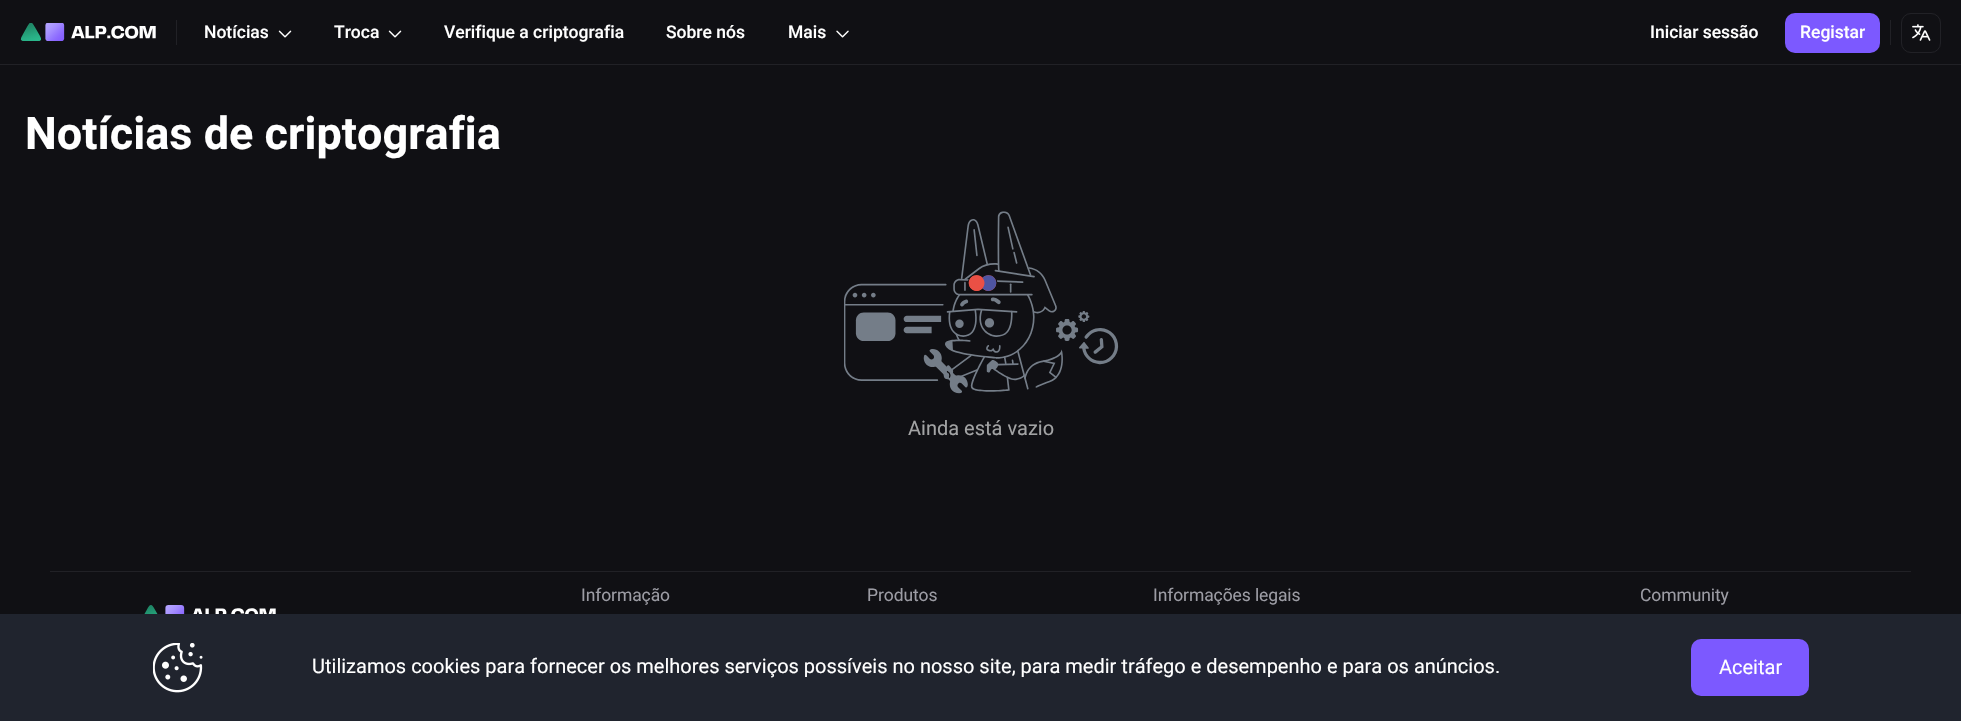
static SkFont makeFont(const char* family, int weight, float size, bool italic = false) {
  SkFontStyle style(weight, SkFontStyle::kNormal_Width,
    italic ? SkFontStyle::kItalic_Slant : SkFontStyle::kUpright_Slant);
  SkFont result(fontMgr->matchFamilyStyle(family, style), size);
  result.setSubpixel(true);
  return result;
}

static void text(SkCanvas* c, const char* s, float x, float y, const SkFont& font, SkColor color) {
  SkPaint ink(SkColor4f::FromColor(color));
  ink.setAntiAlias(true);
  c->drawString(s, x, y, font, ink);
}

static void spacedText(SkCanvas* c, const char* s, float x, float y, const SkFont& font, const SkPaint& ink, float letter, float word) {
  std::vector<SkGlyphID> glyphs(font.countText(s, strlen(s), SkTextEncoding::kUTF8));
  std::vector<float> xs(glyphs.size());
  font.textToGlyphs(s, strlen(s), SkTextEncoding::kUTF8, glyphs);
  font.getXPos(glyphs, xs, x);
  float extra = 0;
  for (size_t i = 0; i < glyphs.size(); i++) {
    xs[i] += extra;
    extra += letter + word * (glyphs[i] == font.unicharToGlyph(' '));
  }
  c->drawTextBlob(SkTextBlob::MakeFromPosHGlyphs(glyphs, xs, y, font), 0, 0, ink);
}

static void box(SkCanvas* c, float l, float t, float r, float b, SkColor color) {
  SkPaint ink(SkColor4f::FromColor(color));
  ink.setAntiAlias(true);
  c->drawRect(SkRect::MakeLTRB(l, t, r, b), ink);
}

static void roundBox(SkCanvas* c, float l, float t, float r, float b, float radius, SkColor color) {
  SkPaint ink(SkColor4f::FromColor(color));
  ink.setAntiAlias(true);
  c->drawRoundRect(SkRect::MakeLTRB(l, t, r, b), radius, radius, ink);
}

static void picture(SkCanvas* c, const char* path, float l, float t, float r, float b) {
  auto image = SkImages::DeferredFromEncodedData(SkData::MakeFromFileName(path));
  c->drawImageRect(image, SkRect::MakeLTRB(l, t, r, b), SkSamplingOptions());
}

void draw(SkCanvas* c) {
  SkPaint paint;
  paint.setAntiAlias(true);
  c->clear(0xff101014);
  box(c, 0, 64, 1961, 65, 0xff212126);
  picture(c, "img_01.png", 20, 23, 156, 41);
  box(c, 176, 20, 177, 45, 0xff212126);
  SkFont face1 = makeFont("Roboto", 500, 17.5f);
  text(c, "Notícias", 204, 38, face1, 0xffffffff);
  picture(c, "img_02.png", 278, 30, 292, 38);
  text(c, "Troca", 334, 38, face1, 0xffffffff);
  picture(c, "img_02.png", 388, 30, 402, 38);
  text(c, "Verifique a criptografia", 444, 38, face1, 0xffffffff);
  text(c, "Sobre nós", 666, 38, face1, 0xffffffff);
  text(c, "Mais", 788, 38, face1, 0xffffffff);
  picture(c, "img_03.png", 836, 30, 849, 38);
  text(c, "Iniciar sessão", 1650, 38, face1, 0xffffffff);
  roundBox(c, 1785, 13, 1880, 53, 10, 0xff7c59ff);
  text(c, "Registar", 1800, 38, face1, 0xffffffff);
  box(c, 1890, 20, 1891, 45, 0xff212126);
  paint.setStyle(SkPaint::kStroke_Style);
  paint.setStrokeWidth(1);
  paint.setColor(0xff212126);
  c->drawRoundRect(SkRect::MakeLTRB(1901.5f, 13.5f, 1940.5f, 52.5f), 9.5f, 9.5f, paint);
  picture(c, "img_04.png", 1912, 24, 1931, 41);
  SkFont face2 = makeFont("Roboto", 700, 45);
  text(c, "Notícias de criptografia", 25, 149, face2, 0xffffffff);
  picture(c, "img_05.png", 844, 211, 1119, 394);
  SkFont face3 = makeFont("Roboto", 400, 20);
  text(c, "Ainda está vazio", 908, 435, face3, 0xffa2a3a4);
  box(c, 50, 571, 1911, 572, 0xff212126);
  SkFont face4 = makeFont("Roboto", 400, 17.5f);
  paint.setStyle(SkPaint::kFill_Style);
  paint.setColor(0xff9c9ca4);
  spacedText(c, "Informação", 581, 601, face4, paint, -0.1f, 0);
  spacedText(c, "Produtos", 867, 601, face4, paint, -0.1f, 0);
  spacedText(c, "Informações legais", 1153, 601, face4, paint, -0.1f, 0);
  spacedText(c, "Community", 1640, 601, face4, paint, -0.1f, 0);
  picture(c, "img_06.png", 144, 605, 276, 614);
  box(c, 0, 614, 1961, 721, 0xff20242e);
  picture(c, "img_07.png", 153, 643, 203, 693);
  text(c, "Utilizamos cookies para fornecer os melhores serviços possíveis no nosso site, para medir tráfego e desempenho e para os anúncios.", 312, 673, face3, 0xffffffff);
  roundBox(c, 1691, 639, 1809, 696, 10, 0xff7c59ff);
  text(c, "Aceitar", 1719, 674, face3, 0xffffffff);
}
